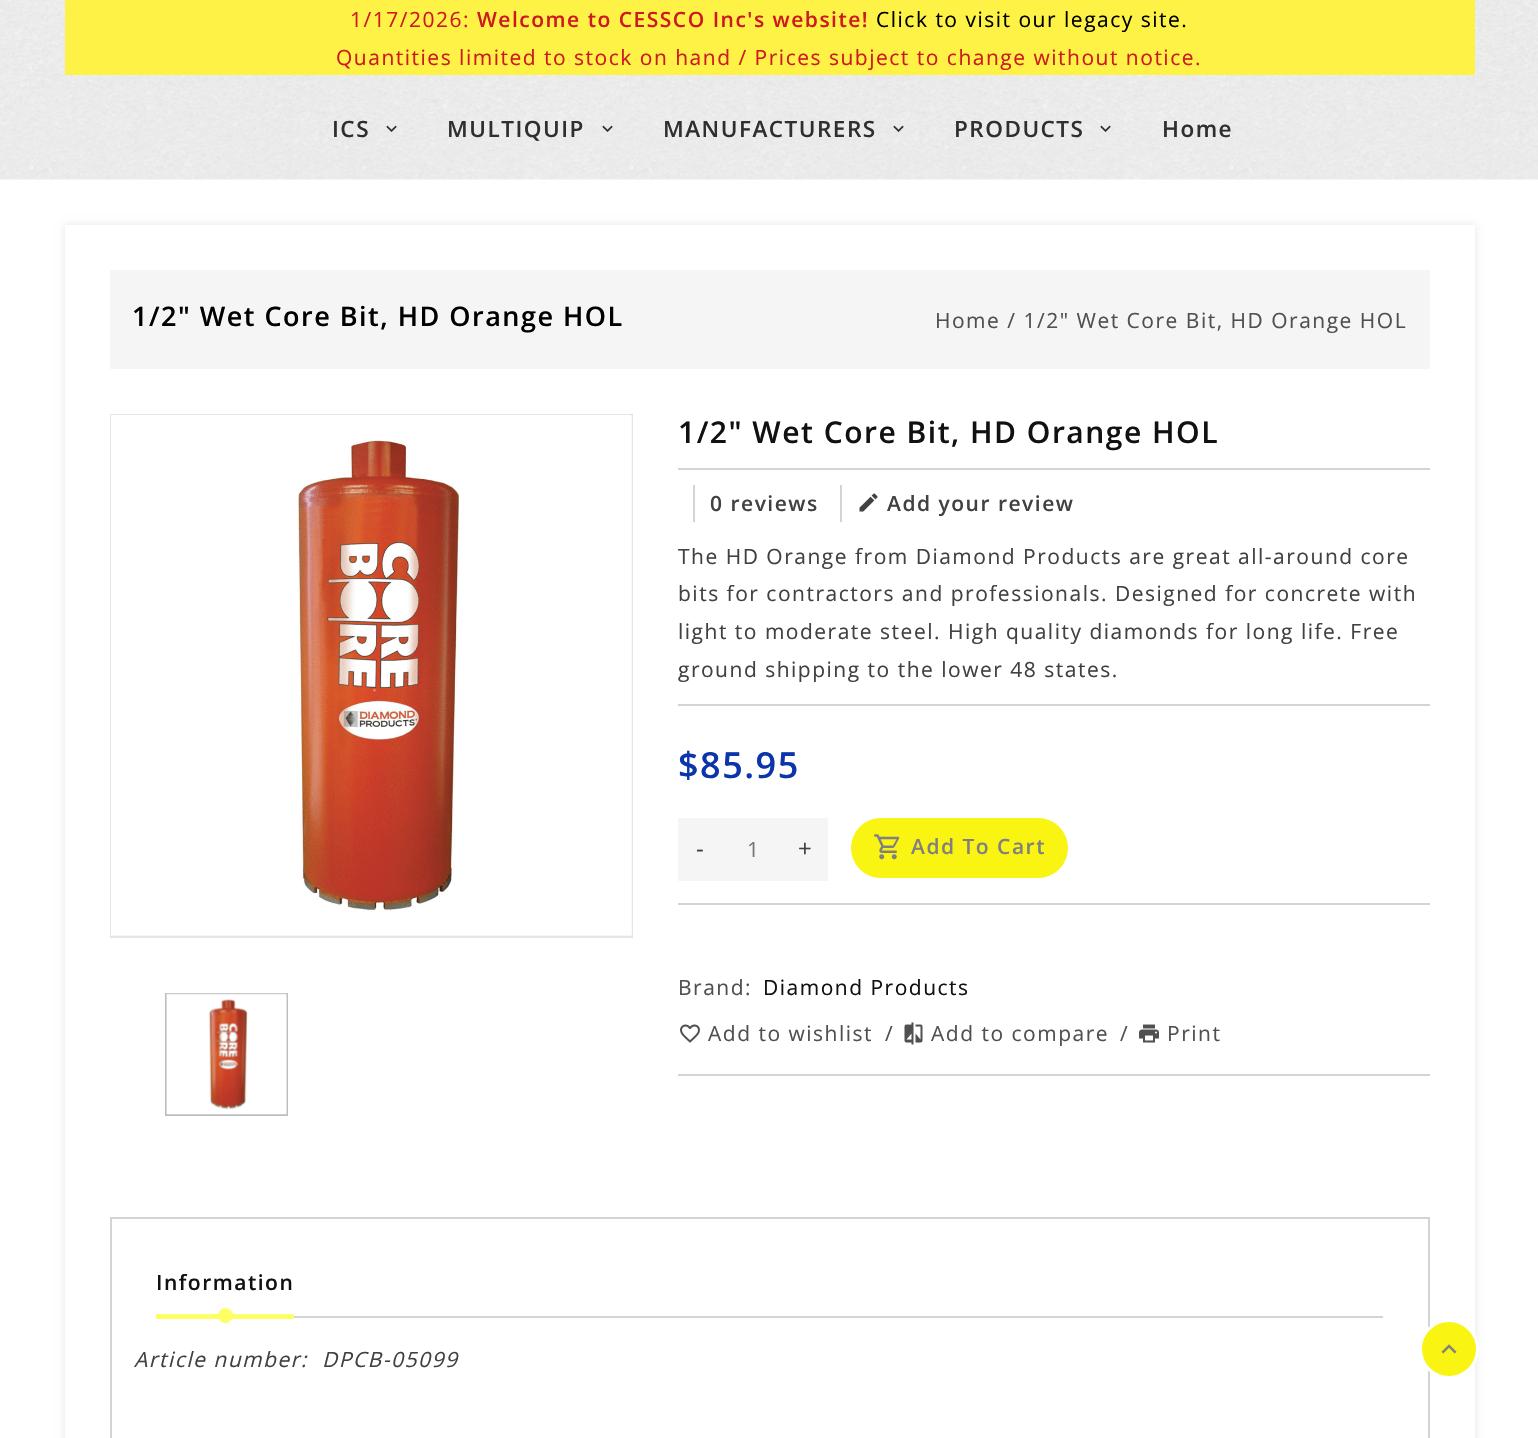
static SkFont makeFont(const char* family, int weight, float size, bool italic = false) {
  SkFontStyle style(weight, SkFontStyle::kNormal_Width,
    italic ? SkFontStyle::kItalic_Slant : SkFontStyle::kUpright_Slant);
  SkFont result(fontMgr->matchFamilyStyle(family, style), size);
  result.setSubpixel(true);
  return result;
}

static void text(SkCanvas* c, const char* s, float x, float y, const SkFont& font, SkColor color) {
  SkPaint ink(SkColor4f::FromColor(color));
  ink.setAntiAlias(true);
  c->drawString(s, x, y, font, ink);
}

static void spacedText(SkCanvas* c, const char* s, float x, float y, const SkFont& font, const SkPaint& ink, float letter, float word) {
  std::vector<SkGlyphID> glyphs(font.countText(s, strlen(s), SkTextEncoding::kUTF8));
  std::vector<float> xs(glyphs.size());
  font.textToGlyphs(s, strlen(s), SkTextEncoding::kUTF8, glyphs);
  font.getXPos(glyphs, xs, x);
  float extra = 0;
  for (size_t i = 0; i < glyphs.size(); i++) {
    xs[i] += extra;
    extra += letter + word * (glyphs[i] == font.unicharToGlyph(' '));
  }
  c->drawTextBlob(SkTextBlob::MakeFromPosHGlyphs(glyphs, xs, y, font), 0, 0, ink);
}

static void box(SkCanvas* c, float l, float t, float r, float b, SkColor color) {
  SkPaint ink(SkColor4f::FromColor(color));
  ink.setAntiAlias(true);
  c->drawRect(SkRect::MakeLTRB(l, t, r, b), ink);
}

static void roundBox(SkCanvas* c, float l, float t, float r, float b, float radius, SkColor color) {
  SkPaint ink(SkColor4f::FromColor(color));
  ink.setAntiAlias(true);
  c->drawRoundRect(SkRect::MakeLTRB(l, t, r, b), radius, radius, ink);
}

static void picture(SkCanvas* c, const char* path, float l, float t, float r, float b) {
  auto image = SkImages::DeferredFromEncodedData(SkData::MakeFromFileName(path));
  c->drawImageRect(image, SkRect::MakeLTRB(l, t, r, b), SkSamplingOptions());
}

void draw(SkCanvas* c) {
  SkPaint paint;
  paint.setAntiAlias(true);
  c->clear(0xffffffff);
  picture(c, "img_01.png", 0, 0, 1538, 180);
  box(c, 65, 0, 1475, 75, 0xfffef246);
  SkFont face1 = makeFont("Open Sans", 400, 21);
  paint.setColor(0xffce1920);
  spacedText(c, "1/17/2026:", 350, 27, face1, paint, 1.5f, 0);
  SkFont face2 = makeFont("Open Sans", 600, 21);
  spacedText(c, "Welcome to CESSCO Inc's website!", 477, 27, face2, paint, 1.5f, 0);
  paint.setColor(0xff000000);
  spacedText(c, "Click to visit our legacy site.", 876, 27, face1, paint, 1.5f, 0);
  paint.setColor(0xffce1920);
  spacedText(c, "Quantities limited to stock on hand / Prices subject to change without notice.", 336, 65, face1, paint, 1.5f, 0);
  SkFont face3 = makeFont("Open Sans", 600, 22.5f);
  paint.setColor(0xff302f2f);
  spacedText(c, "ICS", 332, 137, face3, paint, 1.5f, 0);
  picture(c, "img_02.png", 386, 125, 397, 132);
  spacedText(c, "MULTIQUIP", 447, 137, face3, paint, 1.5f, 0);
  picture(c, "img_03.png", 602, 125, 613, 132);
  spacedText(c, "MANUFACTURERS", 663, 137, face3, paint, 1.5f, 0);
  picture(c, "img_04.png", 893, 125, 904, 132);
  spacedText(c, "PRODUCTS", 954, 137, face3, paint, 1.5f, 0);
  picture(c, "img_05.png", 1100, 125, 1111, 132);
  spacedText(c, "Home", 1162, 137, face3, paint, 1.5f, 0);
  paint.setColor(0x1a000000);
  paint.setMaskFilter(SkMaskFilter::MakeBlur(kNormal_SkBlurStyle, 4));
  c->drawRect(SkRect::MakeLTRB(65, 225, 1475, 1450), paint);
  paint.setMaskFilter(nullptr);
  box(c, 65, 225, 1475, 1438, 0xffffffff);
  box(c, 110, 270, 1430, 369, 0xfff5f5f5);
  SkFont face4 = makeFont("Open Sans", 600, 27);
  paint.setColor(0xff000000);
  spacedText(c, "1/2\" Wet Core Bit, HD Orange HOL", 132, 326, face4, paint, 1.5f, 0);
  paint.setColor(0xff505050);
  spacedText(c, "Home / 1/2\" Wet Core Bit, HD Orange HOL", 935, 328, face1, paint, 1.5f, 0);
  paint.setStyle(SkPaint::kStroke_Style);
  paint.setStrokeWidth(2);
  paint.setColor(0xffe5e5e5);
  c->drawRect(SkRect::MakeLTRB(111, 415, 632, 937), paint);
  box(c, 111, 416, 632, 936, 0xfff7f7f7);
  picture(c, "img_06.png", 111, 415, 632, 935);
  paint.setColor(0xffbebebe);
  c->drawRect(SkRect::MakeLTRB(166, 994, 287, 1115), paint);
  picture(c, "img_07.png", 166, 993, 287, 1115);
  box(c, 678, 468, 1430, 470, 0xffd4d4d4);
  SkFont face5 = makeFont("Open Sans", 600, 30);
  paint.setStyle(SkPaint::kFill_Style);
  paint.setColor(0xff111111);
  spacedText(c, "1/2\" Wet Core Bit, HD Orange HOL", 678, 443, face5, paint, 1.5f, 0);
  box(c, 693, 485, 695, 522, 0xffd4d4d4);
  paint.setColor(0xff414141);
  spacedText(c, "0 reviews", 710, 511, face2, paint, 1.5f, 0);
  box(c, 840, 485, 842, 522, 0xffd4d4d4);
  picture(c, "img_08.png", 859, 493, 878, 512);
  spacedText(c, "Add your review", 887, 511, face2, paint, 1.5f, 0);
  spacedText(c, "The HD Orange from Diamond Products are great all-around core", 678, 564, face1, paint, 1.5f, 0);
  spacedText(c, "bits for contractors and professionals. Designed for concrete with", 678, 601, face1, paint, 1.5f, 0);
  spacedText(c, "light to moderate steel. High quality diamonds for long life. Free", 678, 639, face1, paint, 1.5f, 0);
  spacedText(c, "ground shipping to the lower 48 states.", 678, 677, face1, paint, 1.5f, 0);
  box(c, 678, 704, 1430, 706, 0xffd4d4d4);
  SkFont face6 = makeFont("Open Sans", 600, 36);
  paint.setColor(0xff0c34ab);
  spacedText(c, "$85.95", 678, 778, face6, paint, 1.5f, 0);
  box(c, 678, 818, 828, 881, 0xfff5f5f5);
  SkFont face7 = makeFont("Open Sans", 400, 24);
  paint.setColor(0xff414141);
  spacedText(c, "-", 696, 857, face7, paint, 1.5f, 0);
  spacedText(c, "+", 798, 857, face7, paint, 1.5f, 0);
  text(c, "1", 747, 857, face1, 0xff777777);
  roundBox(c, 851, 818, 1068, 878, 30, 0xfff9f411);
  picture(c, "img_09.png", 874, 834, 900, 860);
  paint.setColor(0xff808080);
  spacedText(c, "Add To Cart", 911, 854, face2, paint, 1.5f, 0);
  box(c, 678, 903, 1430, 905, 0xffd4d4d4);
  box(c, 678, 1074, 1430, 1076, 0xffd4d4d4);
  paint.setColor(0xff505050);
  spacedText(c, "Brand:", 678, 995, face1, paint, 1.5f, 0);
  paint.setColor(0xff111111);
  spacedText(c, "Diamond Products", 763, 995, face1, paint, 1.5f, 0);
  picture(c, "img_10.png", 680, 1024, 700, 1043);
  paint.setColor(0xff505050);
  spacedText(c, "Add to wishlist", 708, 1041, face1, paint, 1.5f, 0);
  spacedText(c, "/", 885, 1041, face1, paint, 1.5f, 0);
  picture(c, "img_11.png", 904, 1022, 923, 1045);
  spacedText(c, "Add to compare", 931, 1041, face1, paint, 1.5f, 0);
  spacedText(c, "/", 1120, 1041, face1, paint, 1.5f, 0);
  picture(c, "img_12.png", 1139, 1024, 1159, 1043);
  spacedText(c, "Print", 1167, 1041, face1, paint, 1.5f, 0);
  paint.setStyle(SkPaint::kStroke_Style);
  paint.setColor(0xffd4d4d4);
  c->drawRect(SkRect::MakeLTRB(111, 1218, 1429, 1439), paint);
  box(c, 294, 1316, 1383, 1318, 0xffd4d4d4);
  paint.setStyle(SkPaint::kFill_Style);
  paint.setColor(0xff111111);
  spacedText(c, "Information", 156, 1290, face2, paint, 1.5f, 0);
  box(c, 156, 1314, 294, 1319, 0xfffdff64);
  paint.setColor(0xfffdff64);
  c->drawCircle(225.5f, 1315.5f, 7.5f, paint);
  SkFont face8 = makeFont("Open Sans", 400, 21, true);
  paint.setColor(0xff414141);
  spacedText(c, "Article number:", 134, 1367, face8, paint, 1.5f, 0);
  spacedText(c, "DPCB-05099", 322, 1367, face8, paint, 1.5f, 0);
  paint.setColor(0xfff9f411);
  c->drawCircle(1449, 1349, 28.5f, paint);
  paint.setStyle(SkPaint::kStroke_Style);
  paint.setStrokeWidth(3);
  paint.setColor(0xffffffff);
  c->drawCircle(1449, 1349, 28.5f, paint);
  picture(c, "img_13.png", 1441, 1344, 1457, 1354);
}
